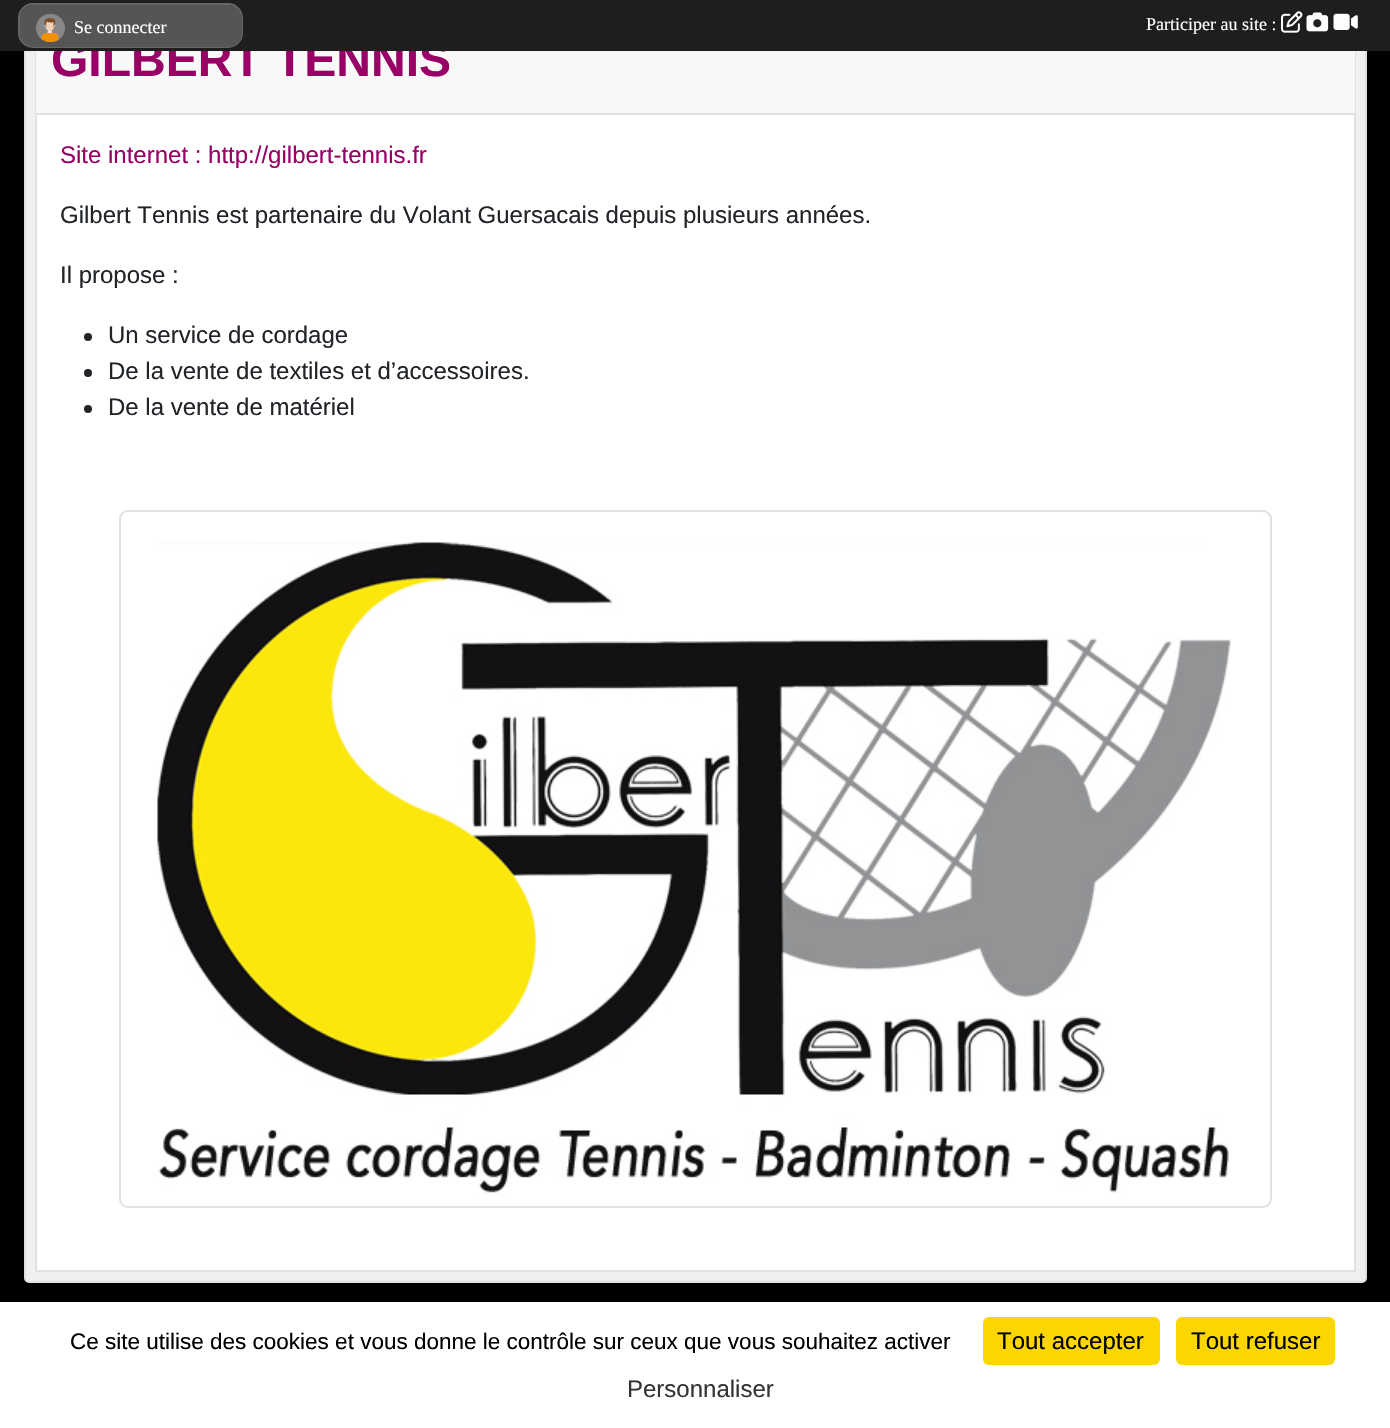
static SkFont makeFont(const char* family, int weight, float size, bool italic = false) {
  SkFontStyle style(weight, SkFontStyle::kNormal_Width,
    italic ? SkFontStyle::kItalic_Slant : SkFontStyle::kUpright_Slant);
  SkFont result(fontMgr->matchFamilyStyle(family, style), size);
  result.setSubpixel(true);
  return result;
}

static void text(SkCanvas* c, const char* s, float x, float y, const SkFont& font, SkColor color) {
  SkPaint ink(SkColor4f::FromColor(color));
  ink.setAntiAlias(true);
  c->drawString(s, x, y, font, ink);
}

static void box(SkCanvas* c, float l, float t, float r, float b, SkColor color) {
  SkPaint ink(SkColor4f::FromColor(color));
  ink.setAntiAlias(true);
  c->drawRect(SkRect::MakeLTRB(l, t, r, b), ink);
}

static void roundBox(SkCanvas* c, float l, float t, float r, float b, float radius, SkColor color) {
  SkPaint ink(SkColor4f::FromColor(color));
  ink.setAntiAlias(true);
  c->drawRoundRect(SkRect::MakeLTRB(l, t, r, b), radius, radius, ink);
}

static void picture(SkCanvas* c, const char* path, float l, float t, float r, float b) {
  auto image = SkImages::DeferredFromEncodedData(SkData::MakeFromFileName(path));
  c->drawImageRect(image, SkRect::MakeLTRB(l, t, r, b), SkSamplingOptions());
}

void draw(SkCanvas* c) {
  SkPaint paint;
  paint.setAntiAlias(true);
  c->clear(0xff000000);
  paint.setColor(0xfff0f0f0);
  c->drawRoundRect(SkRect::MakeLTRB(25, -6, 1366, 1282), 4, 4, paint);
  paint.setStyle(SkPaint::kStroke_Style);
  paint.setStrokeWidth(2);
  paint.setColor(0xffe1e1e1);
  c->drawRoundRect(SkRect::MakeLTRB(25, -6, 1366, 1282), 4, 4, paint);
  box(c, 37, 115, 1354, 1270, 0xffffffff);
  c->drawRect(SkRect::MakeLTRB(36, -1, 1355, 1271), paint);
  box(c, 36, 51, 1355, 113, 0xfff8f8f8);
  SkFont face1 = makeFont("Liberation Sans", 700, 48);
  text(c, "GILBERT TENNIS", 51, 76, face1, 0xff990066);
  box(c, 0, 0, 1390, 51, 0xff1e1e1e);
  paint.setStyle(SkPaint::kFill_Style);
  paint.setColor(0xff333333);
  c->drawRoundRect(SkRect::MakeLTRB(19, 4, 242, 47), 14, 14, paint);
  paint.setStyle(SkPaint::kStroke_Style);
  paint.setColor(0xff666666);
  c->drawRoundRect(SkRect::MakeLTRB(19, 4, 242, 47), 14, 14, paint);
  roundBox(c, 20, 5, 242, 47, 14, 0xff555555);
  picture(c, "img_01.png", 36, 14, 65, 42);
  SkFont face2 = makeFont("Liberation Serif", 400, 18);
  text(c, "Se connecter", 74, 33, face2, 0xffffffff);
  text(c, "Participer au site :", 1146, 30, face2, 0xffffffff);
  picture(c, "img_02.png", 1281, 11, 1303, 33);
  picture(c, "img_03.png", 1306, 12, 1329, 32);
  picture(c, "img_04.png", 1333, 13, 1358, 30);
  box(c, 36, 113, 1355, 115, 0xffe1e1e1);
  SkFont face3 = makeFont("Liberation Sans", 400, 24);
  text(c, "Site internet : http://gilbert-tennis.fr", 60, 163, face3, 0xff990066);
  text(c, "Gilbert Tennis est partenaire du Volant Guersacais depuis plusieurs années.", 60, 223, face3, 0xff212529);
  text(c, "Il propose :", 60, 283, face3, 0xff212529);
  paint.setStyle(SkPaint::kFill_Style);
  paint.setColor(0xff212529);
  c->drawCircle(88, 337, 4, paint);
  text(c, "Un service de cordage", 108, 343, face3, 0xff212529);
  c->drawCircle(88, 373, 4, paint);
  text(c, "De la vente de textiles et d’accessoires.", 108, 379, face3, 0xff212529);
  c->drawCircle(88, 409, 4, paint);
  text(c, "De la vente de matériel", 108, 415, face3, 0xff212529);
  paint.setStyle(SkPaint::kStroke_Style);
  paint.setColor(0xffdee2e6);
  c->drawRoundRect(SkRect::MakeLTRB(120, 511, 1271, 1207), 8, 8, paint);
  picture(c, "img_05.png", 157, 542, 1231, 1193);
  box(c, 0, 1302, 1390, 1428, 0xffffffff);
  c->save();
  c->clipRect(SkRect::MakeLTRB(56, 1328, 966, 1353));
  SkFont face4 = makeFont("Liberation Sans", 400, 22.5f);
  text(c, "Ce site utilise des cookies et vous donne le contrôle sur ceux que vous souhaitez activer", 70, 1349, face4, 0xff000000);
  c->restore();
  roundBox(c, 983, 1317, 1160, 1365, 6, 0xfffbd600);
  text(c, "Tout accepter", 997, 1349, face3, 0xff000000);
  roundBox(c, 1176, 1317, 1335, 1365, 6, 0xfffbd600);
  text(c, "Tout refuser", 1191, 1349, face3, 0xff000000);
  text(c, "Personnaliser", 627, 1397, face3, 0xff333333);
}
